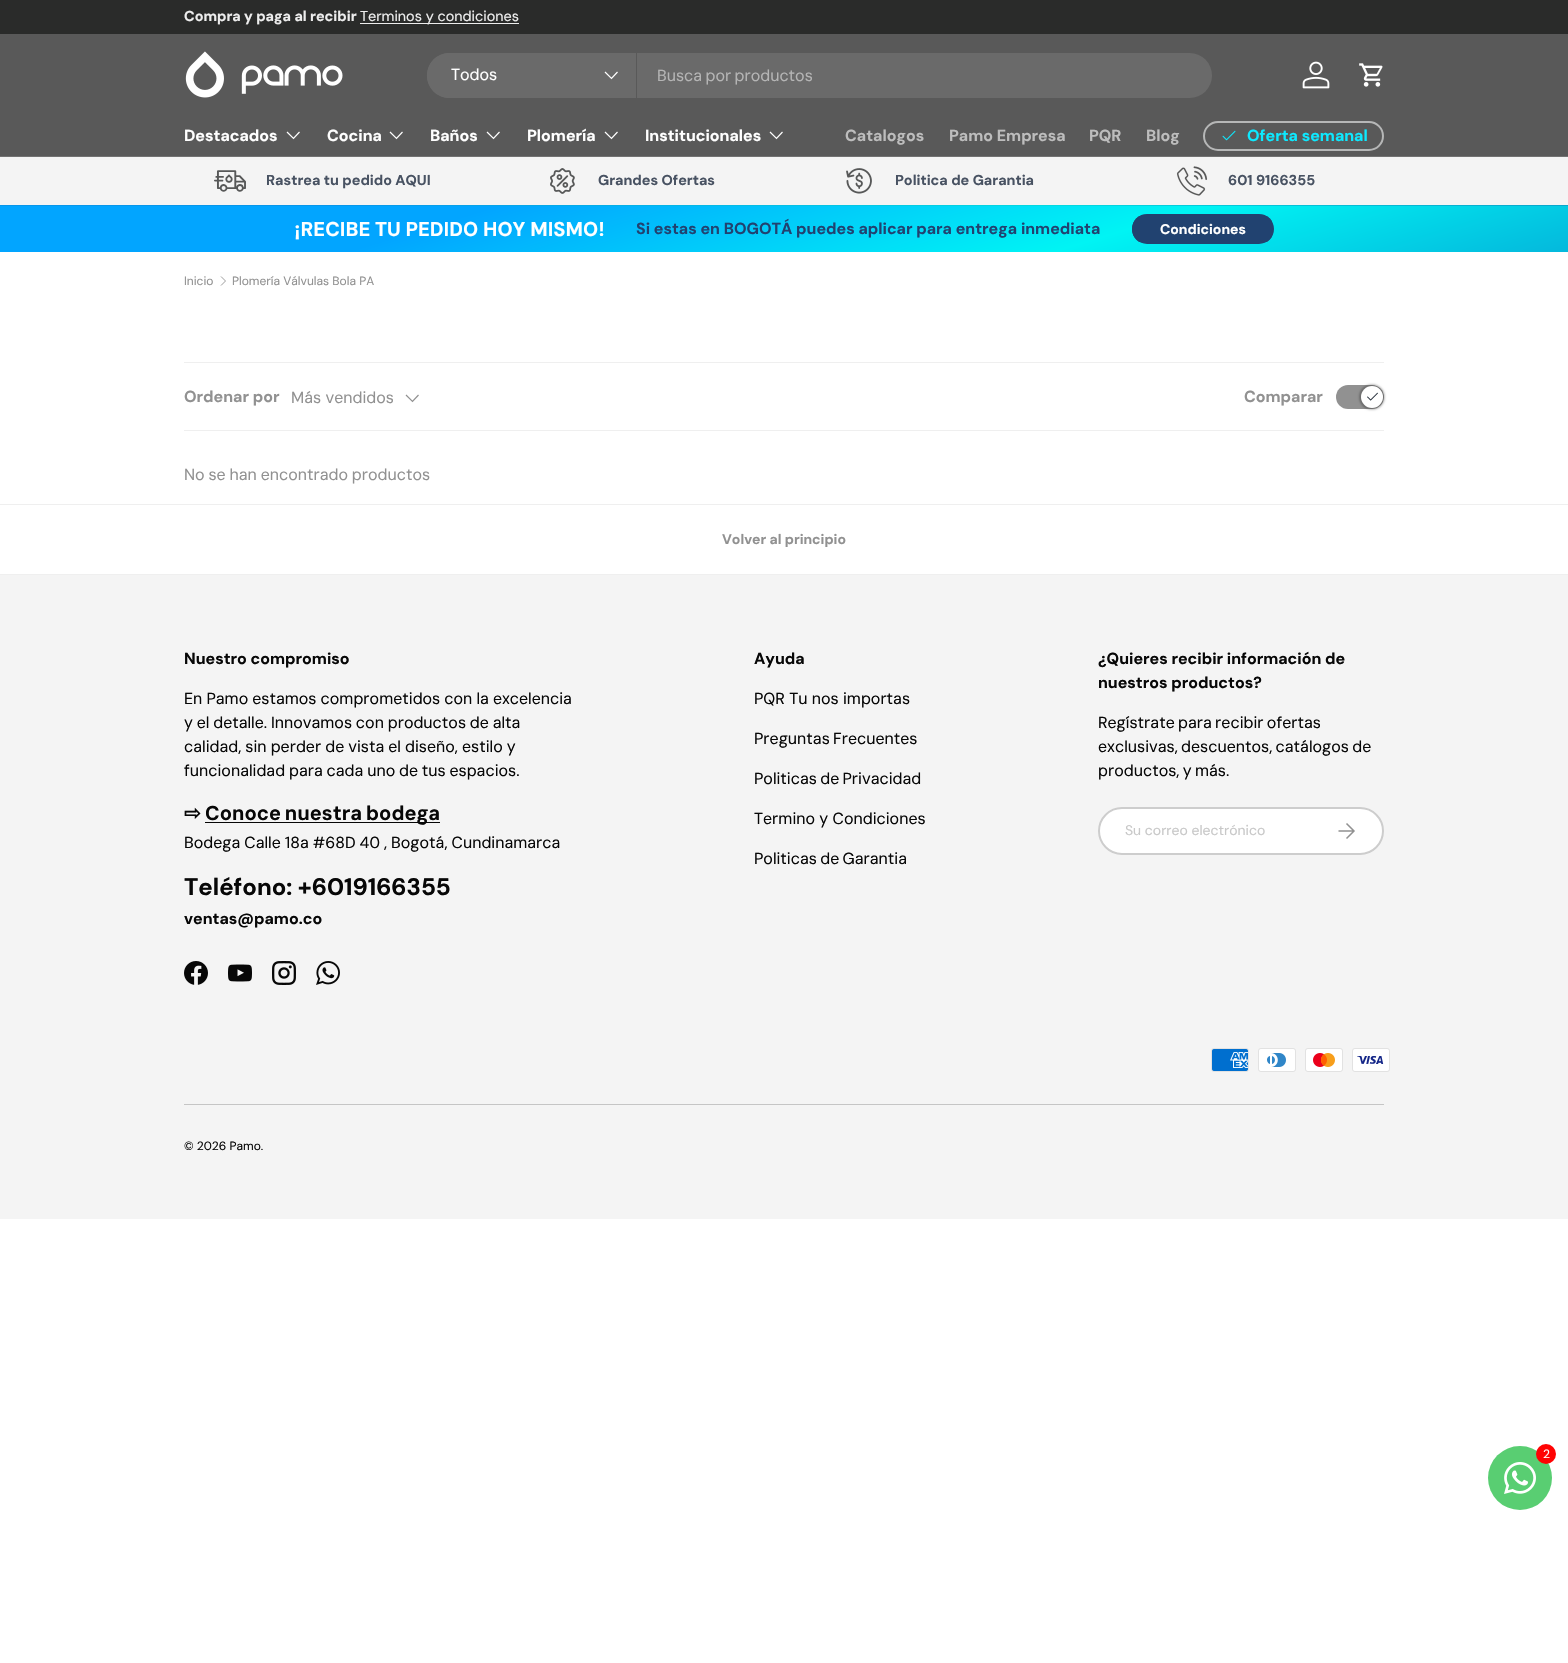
static SkFont makeFont(const char* family, int weight, float size, bool italic = false) {
  SkFontStyle style(weight, SkFontStyle::kNormal_Width,
    italic ? SkFontStyle::kItalic_Slant : SkFontStyle::kUpright_Slant);
  SkFont result(fontMgr->matchFamilyStyle(family, style), size);
  result.setSubpixel(true);
  return result;
}

static void text(SkCanvas* c, const char* s, float x, float y, const SkFont& font, SkColor color) {
  SkPaint ink(SkColor4f::FromColor(color));
  ink.setAntiAlias(true);
  c->drawString(s, x, y, font, ink);
}

static void spacedText(SkCanvas* c, const char* s, float x, float y, const SkFont& font, const SkPaint& ink, float letter, float word) {
  std::vector<SkGlyphID> glyphs(font.countText(s, strlen(s), SkTextEncoding::kUTF8));
  std::vector<float> xs(glyphs.size());
  font.textToGlyphs(s, strlen(s), SkTextEncoding::kUTF8, glyphs);
  font.getXPos(glyphs, xs, x);
  float extra = 0;
  for (size_t i = 0; i < glyphs.size(); i++) {
    xs[i] += extra;
    extra += letter + word * (glyphs[i] == font.unicharToGlyph(' '));
  }
  c->drawTextBlob(SkTextBlob::MakeFromPosHGlyphs(glyphs, xs, y, font), 0, 0, ink);
}

static void box(SkCanvas* c, float l, float t, float r, float b, SkColor color) {
  SkPaint ink(SkColor4f::FromColor(color));
  ink.setAntiAlias(true);
  c->drawRect(SkRect::MakeLTRB(l, t, r, b), ink);
}

static void roundBox(SkCanvas* c, float l, float t, float r, float b, float radius, SkColor color) {
  SkPaint ink(SkColor4f::FromColor(color));
  ink.setAntiAlias(true);
  c->drawRoundRect(SkRect::MakeLTRB(l, t, r, b), radius, radius, ink);
}

static void picture(SkCanvas* c, const char* path, float l, float t, float r, float b) {
  auto image = SkImages::DeferredFromEncodedData(SkData::MakeFromFileName(path));
  c->drawImageRect(image, SkRect::MakeLTRB(l, t, r, b), SkSamplingOptions());
}

void draw(SkCanvas* c) {
  SkPaint paint;
  paint.setAntiAlias(true);
  c->clear(0xffffffff);
  box(c, 0, 0, 1568, 34, 0xff2a2b2a);
  SkFont face1 = makeFont("DM Sans", 700, 14.4f);
  text(c, "Compra y paga al recibir", 184, 21, face1, 0xffededed);
  box(c, 360, 23, 519, 24, 0xffededed);
  SkFont face2 = makeFont("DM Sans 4", 400, 14.4f);
  text(c, "Terminos y condiciones", 360, 21, face2, 0xffededed);
  box(c, 0, 34, 1568, 156, 0xff595959);
  box(c, 0, 156, 1568, 157, 0xff727272);
  picture(c, "img_01.png", 185, 51, 343, 98);
  roundBox(c, 427, 53, 1212, 98, 22.5f, 0xff6a6a6a);
  paint.setColor(0xff6a6a6a);
  c->drawPath(SkPathBuilder().moveTo(449.5f, 53).lineTo(637, 53).lineTo(637, 98).lineTo(449.5f, 98).cubicTo(437, 98, 427, 88, 427, 75.5f).cubicTo(427, 63, 437, 53, 449.5f, 53).close().detach(), paint);
  box(c, 636, 53, 637, 98, 0xff595959);
  SkFont face3 = makeFont("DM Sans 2", 400, 16);
  text(c, "Todos", 451, 80, face3, 0xffffffff);
  paint.setStyle(SkPaint::kStroke_Style);
  paint.setStrokeWidth(1.2f);
  paint.setColor(0xffffffff);
  c->drawPath(SkPathBuilder().moveTo(617.5f, 72).lineTo(611.5f, 78.5f).lineTo(605, 72).detach(), paint);
  paint.setStyle(SkPaint::kFill_Style);
  paint.setColor(0xffb5b5b5);
  spacedText(c, "Busca por productos", 657, 81, face3, paint, 0, -1);
  picture(c, "img_02.png", 1302, 61, 1330, 89);
  picture(c, "img_03.png", 1359, 63, 1383, 87);
  SkFont face4 = makeFont("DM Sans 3", 700, 16);
  text(c, "Destacados", 184, 141, face4, 0xffffffff);
  paint.setStyle(SkPaint::kStroke_Style);
  paint.setColor(0xffffffff);
  c->drawPath(SkPathBuilder().moveTo(299.5f, 132).lineTo(293.5f, 138.5f).lineTo(287, 132).detach(), paint);
  text(c, "Cocina", 327, 141, face4, 0xffffffff);
  c->drawPath(SkPathBuilder().moveTo(402.5f, 132).lineTo(396.5f, 138.5f).lineTo(390, 132).detach(), paint);
  text(c, "Baños", 430, 141, face4, 0xffffffff);
  c->drawPath(SkPathBuilder().moveTo(499.5f, 132).lineTo(493.5f, 138.5f).lineTo(487, 132).detach(), paint);
  text(c, "Plomería", 527, 141, face4, 0xffffffff);
  c->drawPath(SkPathBuilder().moveTo(617.5f, 132).lineTo(611.5f, 138.5f).lineTo(605, 132).detach(), paint);
  text(c, "Institucionales", 645, 141, face4, 0xffffffff);
  c->drawPath(SkPathBuilder().moveTo(782.5f, 132).lineTo(776.5f, 138.5f).lineTo(770, 132).detach(), paint);
  text(c, "Catalogos", 845, 141, face4, 0xffbdbdbd);
  text(c, "Pamo Empresa", 949, 141, face4, 0xffbdbdbd);
  text(c, "PQR", 1089, 141, face4, 0xffbdbdbd);
  text(c, "Blog", 1146, 141, face4, 0xffbdbdbd);
  paint.setStrokeWidth(2);
  paint.setColor(0xffb6b7b7);
  c->drawRoundRect(SkRect::MakeLTRB(1204, 122, 1383, 150), 14, 14, paint);
  picture(c, "img_04.png", 1222, 130, 1236, 141);
  text(c, "Oferta semanal", 1247, 141, face4, 0xff0de9ff);
  box(c, 0, 157, 1568, 205, 0xfff4f4f4);
  picture(c, "img_05.png", 214, 170, 246, 192);
  text(c, "Rastrea tu pedido AQUI", 266, 185, face1, 0xff485262);
  picture(c, "img_06.png", 550, 168, 575, 194);
  text(c, "Grandes Ofertas", 598, 185, face1, 0xff485262);
  picture(c, "img_07.png", 846, 168, 872, 194);
  text(c, "Politica de Garantia", 895, 185, face1, 0xff485262);
  picture(c, "img_08.png", 1176, 166, 1208, 196);
  text(c, "601 9166355", 1228, 185, face1, 0xff485262);
  paint.setStyle(SkPaint::kFill_Style);
  {
    const SkColor colors[] = {0xff0796ea, 0xff05d9e0, 0xff08a6cc};
    const float stops[] = {0.29f, 0.7f, 1};
    const SkPoint ends[] = {{711, -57}, {857, 423}};
    paint.setShader(SkGradientShader::MakeLinear(ends, colors, stops, 3, SkTileMode::kClamp));
    paint.setAlpha(255);
  }
  c->drawRect(SkRect::MakeLTRB(0, 205, 1568, 206), paint);
  {
    const SkColor colors[] = {0xff02a5ff, 0xff00f4f4, 0xff04b8dc};
    const float stops[] = {0.29f, 0.7f, 1};
    const SkPoint ends[] = {{711, -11}, {857, 469}};
    paint.setShader(SkGradientShader::MakeLinear(ends, colors, stops, 3, SkTileMode::kClamp));
    paint.setAlpha(255);
  }
  c->drawRect(SkRect::MakeLTRB(0, 206, 1568, 252), paint);
  SkFont face5 = makeFont("DM Sans 2", 700, 20);
  text(c, "¡RECIBE TU PEDIDO HOY MISMO!", 294, 236, face5, 0xffffffff);
  text(c, "Si estas en BOGOTÁ puedes aplicar para entrega inmediata", 636, 234, face4, 0xff214270);
  c->save();
  c->clipPath(SkPathBuilder().moveTo(1147, 214).lineTo(1259, 214).cubicTo(1267.5f, 214, 1274, 220.5f, 1274, 229).cubicTo(1274, 237.5f, 1267.5f, 244, 1259, 244).lineTo(1147, 244).cubicTo(1138.5f, 244, 1132, 237.5f, 1132, 229).cubicTo(1132, 220.5f, 1138.5f, 214, 1147, 214).close().detach(), true);
  {
    const SkColor colors[] = {0xff47658f, 0xff214270, 0xff214270};
    const float stops[] = {0.6f, 0.6f, 1};
    const SkPoint ends[] = {{867, 180}, {1263, 278}};
    paint.setShader(SkGradientShader::MakeLinear(ends, colors, stops, 3, SkTileMode::kClamp));
    paint.setAlpha(255);
  }
  c->drawRect(SkRect::MakeLTRB(1132, 216, 1272, 242), paint);
  c->restore();
  paint.setStyle(SkPaint::kStroke_Style);
  paint.setShader(nullptr);
  paint.setColor(0xff214270);
  c->drawRoundRect(SkRect::MakeLTRB(1133, 215, 1273, 243), 14, 14, paint);
  SkFont face6 = makeFont("DM Sans 4", 700, 14);
  text(c, "Condiciones", 1160, 234, face6, 0xffffffff);
  SkFont face7 = makeFont("DM Sans", 400, 12);
  text(c, "Inicio", 184, 285, face7, 0xff919191);
  paint.setStrokeWidth(0.9f);
  paint.setColor(0xff919191);
  c->drawPath(SkPathBuilder().moveTo(221, 276.5f).lineTo(225.5f, 281).lineTo(221, 285.5f).detach(), paint);
  text(c, "Plomería Válvulas Bola PA", 232, 285, face7, 0xff919191);
  box(c, 184, 362, 1384, 363, 0xffefefef);
  box(c, 184, 430, 1384, 431, 0xffefefef);
  text(c, "Ordenar por", 184, 402, face4, 0xff919191);
  text(c, "Más vendidos", 291, 403, face3, 0xff919191);
  paint.setStrokeWidth(1.2f);
  c->drawPath(SkPathBuilder().moveTo(418.5f, 395).lineTo(412.5f, 401.5f).lineTo(406, 395).detach(), paint);
  roundBox(c, 1336, 385, 1384, 409, 12, 0xff919191);
  paint.setStyle(SkPaint::kFill_Style);
  paint.setColor(0x40000000);
  paint.setMaskFilter(SkMaskFilter::MakeBlur(kNormal_SkBlurStyle, 1));
  c->drawRoundRect(SkRect::MakeLTRB(1359, 384, 1385, 410), 13, 13, paint);
  paint.setMaskFilter(nullptr);
  paint.setColor(0xffffffff);
  c->drawCircle(1372, 397, 11, paint);
  picture(c, "img_09.png", 1367, 392, 1378, 401);
  text(c, "Comparar", 1244, 402, face4, 0xff919191);
  paint.setColor(0xff919191);
  spacedText(c, "No se han encontrado productos", 184, 480, face3, paint, 0, -0.5f);
  box(c, 0, 504, 1568, 505, 0xffefefef);
  box(c, 0, 574, 1568, 575, 0xffefefef);
  text(c, "Volver al principio", 722, 544, face6, 0xff919191);
  box(c, 0, 575, 1568, 1219, 0xfff4f4f4);
  text(c, "Nuestro compromiso", 184, 664, face4, 0xff070707);
  paint.setColor(0xff070707);
  spacedText(c, "En Pamo estamos comprometidos con la excelencia", 184, 704, face3, paint, 0, -0.25f);
  spacedText(c, "y el detalle. Innovamos con productos de alta", 184, 728, face3, paint, 0, -0.5f);
  spacedText(c, "calidad, sin perder de vista el diseño, estilo y", 184, 752, face3, paint, 0, -0.25f);
  spacedText(c, "funcionalidad para cada uno de tus espacios.", 184, 776, face3, paint, 0, -0.5f);
  SkFont face8 = makeFont("DejaVu Sans", 700, 20);
  text(c, "⇨", 184, 820, face8, 0xff070707);
  box(c, 205, 822, 440, 823, 0xff070707);
  spacedText(c, "Conoce nuestra bodega", 205, 820, face5, paint, 0, -1);
  spacedText(c, "Bodega Calle 18a #68D 40 , Bogotá, Cundinamarca", 184, 848, face3, paint, 0, -0.25f);
  SkFont face9 = makeFont("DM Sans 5", 700, 24);
  text(c, "Teléfono: +6019166355", 184, 895, face9, 0xff070707);
  text(c, "ventas@pamo.co", 184, 924, face4, 0xff070707);
  picture(c, "img_10.png", 184, 961, 208, 985);
  picture(c, "img_11.png", 228, 964, 252, 982);
  picture(c, "img_12.png", 272, 961, 296, 985);
  picture(c, "img_13.png", 316, 961, 340, 985);
  text(c, "Ayuda", 754, 664, face4, 0xff070707);
  text(c, "PQR Tu nos importas", 754, 704, face3, 0xff070707);
  spacedText(c, "Preguntas Frecuentes", 754, 744, face3, paint, 0, -1);
  spacedText(c, "Politicas de Privacidad", 754, 784, face3, paint, 0, -1);
  text(c, "Termino y Condiciones", 754, 824, face3, 0xff070707);
  spacedText(c, "Politicas de Garantia", 754, 864, face3, paint, 0, -1);
  text(c, "¿Quieres recibir información de", 1098, 664, face4, 0xff070707);
  text(c, "nuestros productos?", 1098, 688, face4, 0xff070707);
  spacedText(c, "Regístrate para recibir ofertas", 1098, 728, face3, paint, 0, -1);
  spacedText(c, "exclusivas, descuentos, catálogos de", 1098, 752, face3, paint, 0, -1);
  spacedText(c, "productos, y más.", 1098, 776, face3, paint, 0, -1);
  roundBox(c, 1098, 807, 1384, 855, 24, 0xffffffff);
  paint.setStyle(SkPaint::kStroke_Style);
  paint.setStrokeWidth(2);
  paint.setColor(0x33070707);
  c->drawRoundRect(SkRect::MakeLTRB(1099, 808, 1383, 854), 23, 23, paint);
  SkFont face10 = makeFont("DM Sans 3", 400, 14);
  text(c, "Su correo electrónico", 1125, 835, face10, 0xffc8c8c8);
  paint.setStrokeWidth(1.5f);
  paint.setColor(0xff919191);
  c->drawPath(SkPathBuilder().moveTo(1338.5f, 831).lineTo(1353.5f, 831).moveTo(1346.5f, 823.5f).lineTo(1354, 831).lineTo(1346.5f, 838.5f).detach(), paint);
  picture(c, "img_14.png", 1211, 1048, 1249, 1072);
  picture(c, "img_15.png", 1258, 1048, 1296, 1072);
  picture(c, "img_16.png", 1305, 1048, 1343, 1072);
  picture(c, "img_17.png", 1352, 1048, 1390, 1072);
  box(c, 184, 1104, 1384, 1105, 0xffc5c5c5);
  text(c, "© 2026 Pamo.", 184, 1150, face7, 0xff070707);
  paint.setStyle(SkPaint::kFill_Style);
  paint.setColor(0xff59ce72);
  c->drawCircle(1520, 1478, 32, paint);
  picture(c, "img_18.png", 1504, 1462, 1536, 1494);
  paint.setColor(0xffff0303);
  c->drawCircle(1546, 1454, 10, paint);
  text(c, "2", 1543, 1458, face7, 0xffffffff);
}
